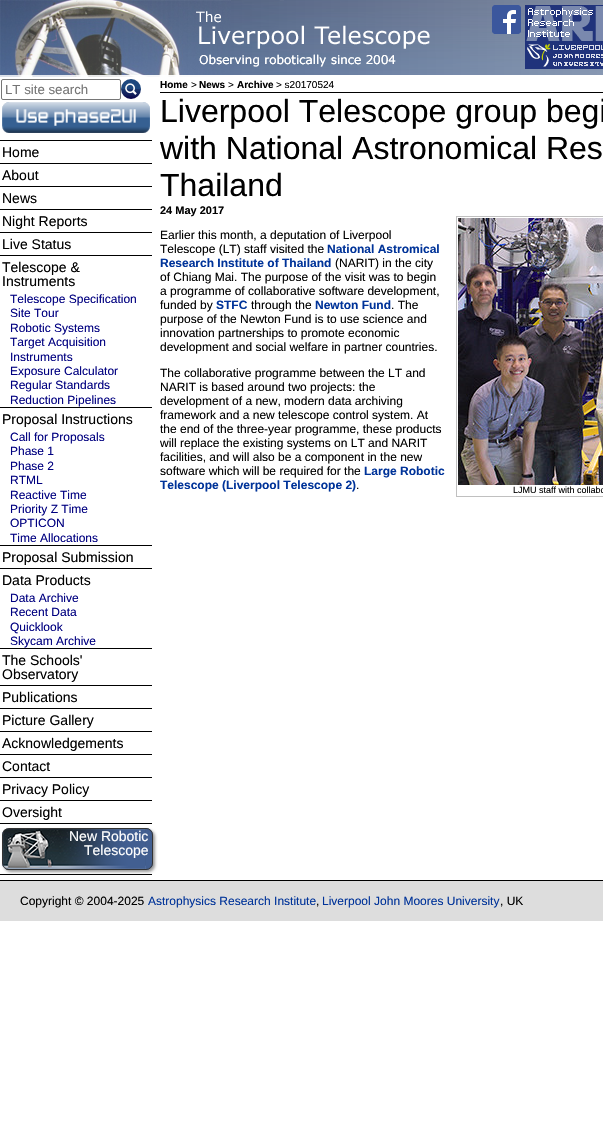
static SkFont makeFont(const char* family, int weight, float size, bool italic = false) {
  SkFontStyle style(weight, SkFontStyle::kNormal_Width,
    italic ? SkFontStyle::kItalic_Slant : SkFontStyle::kUpright_Slant);
  SkFont result(fontMgr->matchFamilyStyle(family, style), size);
  result.setSubpixel(true);
  return result;
}

static void text(SkCanvas* c, const char* s, float x, float y, const SkFont& font, SkColor color) {
  SkPaint ink(SkColor4f::FromColor(color));
  ink.setAntiAlias(true);
  c->drawString(s, x, y, font, ink);
}

static void box(SkCanvas* c, float l, float t, float r, float b, SkColor color) {
  SkPaint ink(SkColor4f::FromColor(color));
  ink.setAntiAlias(true);
  c->drawRect(SkRect::MakeLTRB(l, t, r, b), ink);
}

static void picture(SkCanvas* c, const char* path, float l, float t, float r, float b) {
  auto image = SkImages::DeferredFromEncodedData(SkData::MakeFromFileName(path));
  c->drawImageRect(image, SkRect::MakeLTRB(l, t, r, b), SkSamplingOptions());
}

void draw(SkCanvas* c) {
  SkPaint paint;
  paint.setAntiAlias(true);
  c->clear(0xffffffff);
  picture(c, "img_01.png", 0, 0, 603, 77);
  picture(c, "img_02.png", 492, 5, 521, 34);
  picture(c, "img_03.png", 525, 5, 603, 69);
  box(c, 0, 874, 152, 875, 0xff000000);
  paint.setStyle(SkPaint::kStroke_Style);
  paint.setStrokeWidth(1);
  paint.setColor(0xff767676);
  c->drawRoundRect(SkRect::MakeLTRB(1.5f, 79.5f, 120.5f, 99.5f), 1.5f, 1.5f, paint);
  SkFont face1 = makeFont("Liberation Sans", 400, 13.25f);
  text(c, "LT site search", 5, 94, face1, 0xff757575);
  picture(c, "img_04.png", 121, 79, 141, 99);
  picture(c, "img_05.png", 2, 102, 150, 133);
  box(c, 0, 140, 152, 141, 0xff000000);
  SkFont face2 = makeFont("Liberation Sans", 400, 14);
  text(c, "Home", 2, 157, face2, 0xff000000);
  box(c, 0, 163, 152, 164, 0xff000000);
  text(c, "About", 2, 180, face2, 0xff000000);
  box(c, 0, 186, 152, 187, 0xff000000);
  text(c, "News", 2, 203, face2, 0xff000000);
  box(c, 0, 209, 152, 210, 0xff000000);
  text(c, "Night Reports", 2, 226, face2, 0xff000000);
  box(c, 0, 232, 152, 233, 0xff000000);
  text(c, "Live Status", 2, 249, face2, 0xff000000);
  box(c, 0, 255, 152, 256, 0xff000000);
  text(c, "Telescope &", 2, 272, face2, 0xff000000);
  text(c, "Instruments", 2, 286, face2, 0xff000000);
  SkFont face3 = makeFont("Liberation Sans", 400, 12);
  text(c, "Telescope Specification", 10, 303, face3, 0xff000080);
  text(c, "Site Tour", 10, 317, face3, 0xff000080);
  text(c, "Robotic Systems", 10, 332, face3, 0xff000080);
  text(c, "Target Acquisition", 10, 346, face3, 0xff000080);
  text(c, "Instruments", 10, 361, face3, 0xff000080);
  text(c, "Exposure Calculator", 10, 375, face3, 0xff000080);
  text(c, "Regular Standards", 10, 389, face3, 0xff000080);
  text(c, "Reduction Pipelines", 10, 404, face3, 0xff000080);
  box(c, 0, 407, 152, 408, 0xff000000);
  text(c, "Proposal Instructions", 2, 424, face2, 0xff000000);
  text(c, "Call for Proposals", 10, 441, face3, 0xff000080);
  text(c, "Phase 1", 10, 455, face3, 0xff000080);
  text(c, "Phase 2", 10, 470, face3, 0xff000080);
  text(c, "RTML", 10, 484, face3, 0xff000080);
  text(c, "Reactive Time", 10, 499, face3, 0xff000080);
  text(c, "Priority Z Time", 10, 513, face3, 0xff000080);
  text(c, "OPTICON", 10, 527, face3, 0xff000080);
  text(c, "Time Allocations", 10, 542, face3, 0xff000080);
  box(c, 0, 545, 152, 546, 0xff000000);
  text(c, "Proposal Submission", 2, 562, face2, 0xff000000);
  box(c, 0, 568, 152, 569, 0xff000000);
  text(c, "Data Products", 2, 585, face2, 0xff000000);
  text(c, "Data Archive", 10, 602, face3, 0xff000080);
  text(c, "Recent Data", 10, 616, face3, 0xff000080);
  text(c, "Quicklook", 10, 631, face3, 0xff000080);
  text(c, "Skycam Archive", 10, 645, face3, 0xff000080);
  box(c, 0, 648, 152, 649, 0xff000000);
  text(c, "The Schools'", 2, 665, face2, 0xff000000);
  text(c, "Observatory", 2, 679, face2, 0xff000000);
  box(c, 0, 685, 152, 686, 0xff000000);
  text(c, "Publications", 2, 702, face2, 0xff000000);
  box(c, 0, 708, 152, 709, 0xff000000);
  text(c, "Picture Gallery", 2, 725, face2, 0xff000000);
  box(c, 0, 731, 152, 732, 0xff000000);
  text(c, "Acknowledgements", 2, 748, face2, 0xff000000);
  box(c, 0, 754, 152, 755, 0xff000000);
  text(c, "Contact", 2, 771, face2, 0xff000000);
  box(c, 0, 777, 152, 778, 0xff000000);
  text(c, "Privacy Policy", 2, 794, face2, 0xff000000);
  box(c, 0, 800, 152, 801, 0xff000000);
  text(c, "Oversight", 2, 817, face2, 0xff000000);
  box(c, 0, 823, 152, 824, 0xff000000);
  paint.setStyle(SkPaint::kFill_Style);
  paint.setColor(0xff999999);
  paint.setMaskFilter(SkMaskFilter::MakeBlur(kNormal_SkBlurStyle, 1.5f));
  c->drawRoundRect(SkRect::MakeLTRB(4, 830, 155, 872), 7, 7, paint);
  paint.setMaskFilter(nullptr);
  picture(c, "img_06.png", 2, 828, 153, 870);
  paint.setStyle(SkPaint::kStroke_Style);
  paint.setColor(0xff333333);
  c->drawRoundRect(SkRect::MakeLTRB(2.5f, 828.5f, 152.5f, 869.5f), 6.5f, 6.5f, paint);
  text(c, "New Robotic", 69, 841, face2, 0xffffffff);
  text(c, "Telescope", 84, 855, face2, 0xffffffff);
  box(c, 160, 92, 603, 93, 0xff000000);
  SkFont face4 = makeFont("Liberation Sans", 700, 10);
  text(c, "Home", 160, 88, face4, 0xff000000);
  SkFont face5 = makeFont("Liberation Sans", 400, 10);
  text(c, ">", 191, 88, face5, 0xff000000);
  text(c, "News", 199, 88, face4, 0xff000000);
  text(c, ">", 228, 88, face5, 0xff000000);
  text(c, "Archive", 237, 88, face4, 0xff000000);
  text(c, "> s20170524", 276, 88, face5, 0xff000000);
  SkFont face6 = makeFont("Liberation Sans", 400, 32);
  text(c, "Liverpool Telescope group begi", 160, 122, face6, 0xff000000);
  text(c, "with National Astronomical Res", 160, 159, face6, 0xff000000);
  text(c, "Thailand", 160, 196, face6, 0xff000000);
  SkFont face7 = makeFont("Liberation Sans", 700, 11);
  text(c, "24 May 2017", 160, 214, face7, 0xff000000);
  text(c, "Earlier this month, a deputation of Liverpool", 160, 239, face3, 0xff000000);
  text(c, "Telescope (LT) staff visited the", 160, 253, face3, 0xff000000);
  SkFont face8 = makeFont("Liberation Sans", 700, 12);
  text(c, "National Astromical", 327, 253, face8, 0xff003399);
  text(c, "Research Institute of Thailand", 160, 267, face8, 0xff003399);
  text(c, "(NARIT) in the city", 335, 267, face3, 0xff000000);
  text(c, "of Chiang Mai. The purpose of the visit was to begin", 160, 281, face3, 0xff000000);
  text(c, "a programme of collaborative software development,", 160, 295, face3, 0xff000000);
  text(c, "funded by", 160, 309, face3, 0xff000000);
  text(c, "STFC", 216, 309, face8, 0xff003399);
  text(c, "through the", 251, 309, face3, 0xff000000);
  text(c, "Newton Fund", 315, 309, face8, 0xff003399);
  text(c, ". The", 391, 309, face3, 0xff000000);
  text(c, "purpose of the Newton Fund is to use science and", 160, 323, face3, 0xff000000);
  text(c, "innovation partnerships to promote economic", 160, 337, face3, 0xff000000);
  text(c, "development and social welfare in partner countries.", 160, 351, face3, 0xff000000);
  text(c, "The collaborative programme between the LT and", 160, 377, face3, 0xff000000);
  text(c, "NARIT is based around two projects: the", 160, 391, face3, 0xff000000);
  text(c, "development of a new, modern data archiving", 160, 405, face3, 0xff000000);
  text(c, "framework and a new telescope control system. At", 160, 419, face3, 0xff000000);
  text(c, "the end of the three-year programme, these products", 160, 433, face3, 0xff000000);
  text(c, "will replace the existing systems on LT and NARIT", 160, 447, face3, 0xff000000);
  text(c, "facilities, and will also be a component in the new", 160, 461, face3, 0xff000000);
  text(c, "software which will be required for the", 160, 475, face3, 0xff000000);
  text(c, "Large Robotic", 364, 475, face8, 0xff003399);
  text(c, "Telescope (Liverpool Telescope 2)", 160, 489, face8, 0xff003399);
  text(c, ".", 356, 489, face3, 0xff000000);
  paint.setColor(0xffc0c0c0);
  c->drawRect(SkRect::MakeLTRB(456.5f, 216.5f, 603.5f, 496.5f), paint);
  picture(c, "img_07.png", 458, 218, 603, 485);
  SkFont face9 = makeFont("Liberation Sans", 400, 9);
  text(c, "LJMU staff with collabo", 513, 493, face9, 0xff000000);
  box(c, 0, 881, 603, 921, 0xffdddddd);
  box(c, 0, 880, 603, 881, 0xff000000);
  text(c, "Copyright © 2004-2025", 20, 905, face3, 0xff000000);
  text(c, "Astrophysics Research Institute", 148, 905, face3, 0xff003399);
  text(c, ",", 316, 905, face3, 0xff000000);
  text(c, "Liverpool John Moores University", 322, 905, face3, 0xff003399);
  text(c, ", UK", 500, 905, face3, 0xff000000);
}
